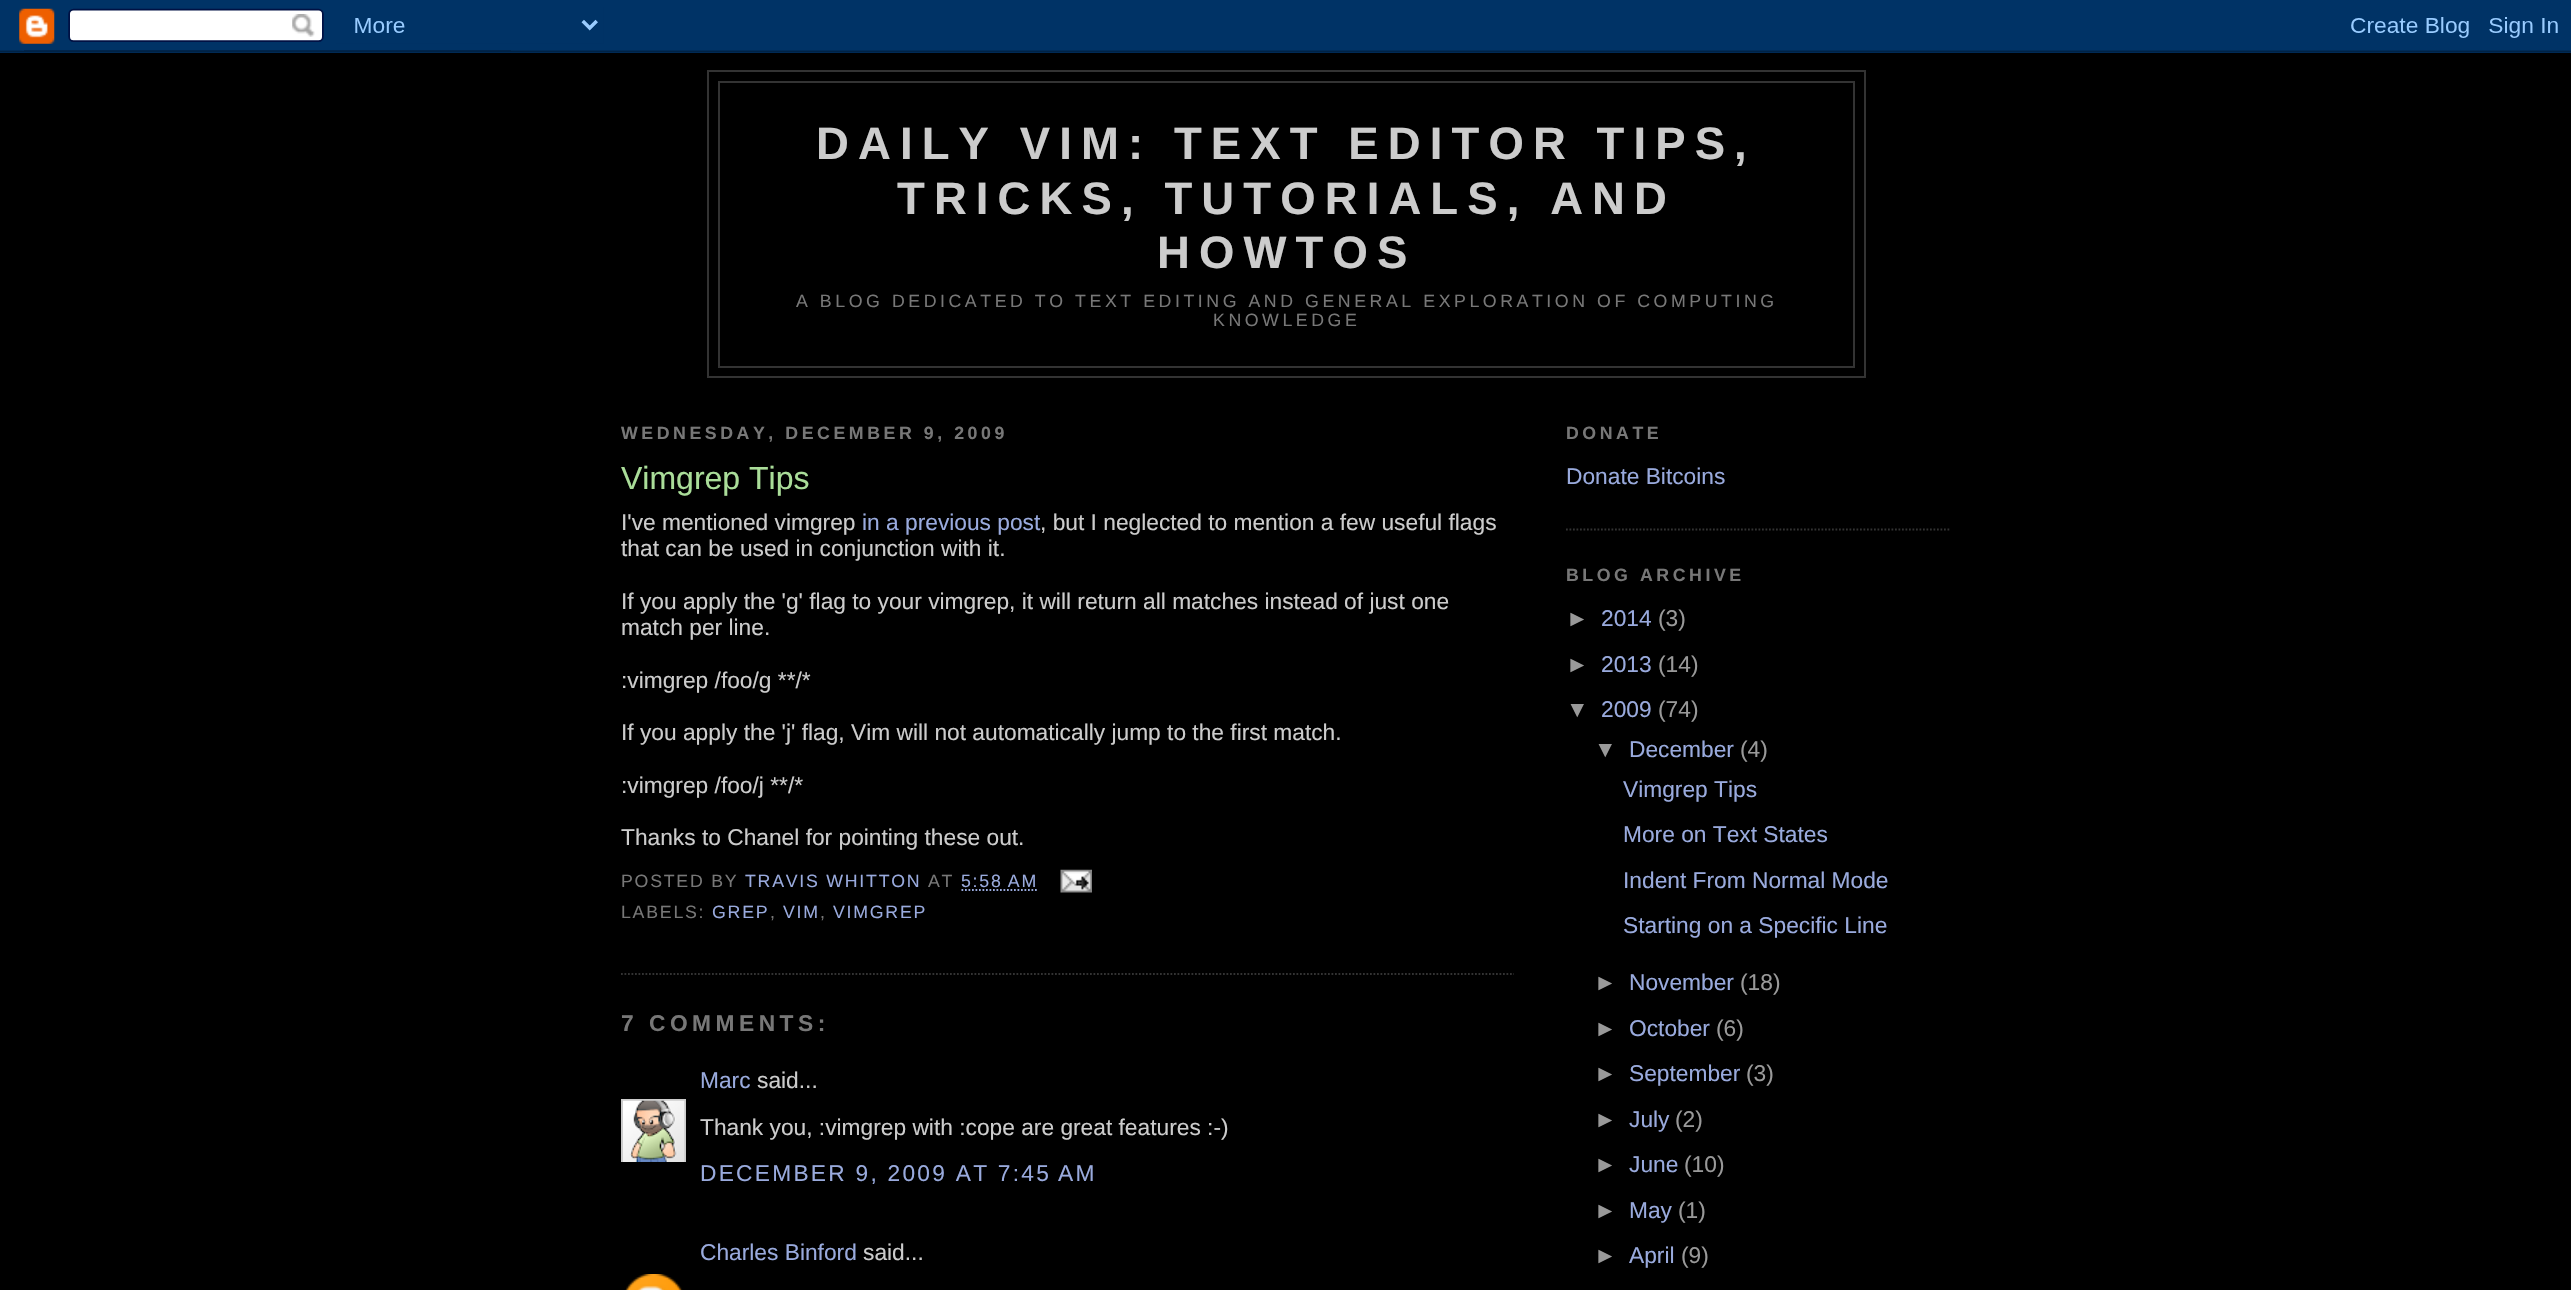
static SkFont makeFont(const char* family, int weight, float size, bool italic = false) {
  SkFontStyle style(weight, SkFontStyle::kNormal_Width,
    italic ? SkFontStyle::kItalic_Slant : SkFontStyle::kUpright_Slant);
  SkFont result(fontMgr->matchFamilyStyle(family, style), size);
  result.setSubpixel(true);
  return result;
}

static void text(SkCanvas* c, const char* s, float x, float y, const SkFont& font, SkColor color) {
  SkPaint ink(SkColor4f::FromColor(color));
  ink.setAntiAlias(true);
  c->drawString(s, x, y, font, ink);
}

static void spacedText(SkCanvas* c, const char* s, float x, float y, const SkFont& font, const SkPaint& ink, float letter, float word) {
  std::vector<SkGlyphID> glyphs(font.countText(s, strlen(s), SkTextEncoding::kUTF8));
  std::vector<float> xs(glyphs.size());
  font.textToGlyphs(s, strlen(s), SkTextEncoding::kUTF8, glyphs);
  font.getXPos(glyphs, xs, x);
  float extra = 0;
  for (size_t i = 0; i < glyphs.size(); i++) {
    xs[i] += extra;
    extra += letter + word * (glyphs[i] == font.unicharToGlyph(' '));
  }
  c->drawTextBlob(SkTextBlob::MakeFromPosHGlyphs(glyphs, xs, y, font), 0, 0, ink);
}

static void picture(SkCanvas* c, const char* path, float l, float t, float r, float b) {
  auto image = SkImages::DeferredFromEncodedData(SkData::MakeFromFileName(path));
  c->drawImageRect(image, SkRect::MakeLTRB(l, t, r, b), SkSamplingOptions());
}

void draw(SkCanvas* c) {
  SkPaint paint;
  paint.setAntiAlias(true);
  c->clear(0xff000000);
  picture(c, "img_01.png", 0, 0, 2571, 53);
  paint.setStyle(SkPaint::kStroke_Style);
  paint.setStrokeWidth(2);
  paint.setColor(0xff333333);
  c->drawRect(SkRect::MakeLTRB(708, 71, 1865, 377), paint);
  c->drawRect(SkRect::MakeLTRB(719, 82, 1854, 367), paint);
  SkFont face1 = makeFont("Liberation Sans", 700, 45.5f);
  paint.setStyle(SkPaint::kFill_Style);
  paint.setColor(0xffcccccc);
  spacedText(c, "DAILY VIM: TEXT EDITOR TIPS,", 816, 159, face1, paint, 9.1f, 0);
  spacedText(c, "TRICKS, TUTORIALS, AND", 897, 214, face1, paint, 9.1f, 0);
  spacedText(c, "HOWTOS", 1157, 268, face1, paint, 9.1f, 0);
  SkFont face2 = makeFont("Liberation Sans", 400, 17.75f);
  paint.setColor(0xff777777);
  spacedText(c, "A BLOG DEDICATED TO TEXT EDITING AND GENERAL EXPLORATION OF COMPUTING", 796, 307, face2, paint, 3.55f, 0);
  spacedText(c, "KNOWLEDGE", 1213, 326, face2, paint, 3.55f, 0);
  SkFont face3 = makeFont("Liberation Sans", 700, 17.75f);
  spacedText(c, "WEDNESDAY, DECEMBER 9, 2009", 621, 439, face3, paint, 3.55f, 0);
  paint.setStyle(SkPaint::kStroke_Style);
  paint.setStrokeWidth(1.8f);
  paint.setColor(0xff333333);
  paint.setPathEffect(SkDashPathEffect::Make({{1.75f, 1.75f}}, 0));
  c->drawPath(SkPathBuilder().moveTo(621, 974).lineTo(1514, 974).detach(), paint);
  paint.setPathEffect(nullptr);
  SkFont face4 = makeFont("Liberation Sans", 400, 32);
  text(c, "Vimgrep Tips", 621, 489, face4, 0xffaadd99);
  SkFont face5 = makeFont("Liberation Sans", 400, 22.75f);
  text(c, "I've mentioned vimgrep", 621, 530, face5, 0xffcccccc);
  text(c, "in a previous post", 862, 530, face5, 0xff99aadd);
  text(c, ", but I neglected to mention a few useful flags", 1040, 530, face5, 0xffcccccc);
  text(c, "that can be used in conjunction with it.", 621, 556, face5, 0xffcccccc);
  text(c, "If you apply the 'g' flag to your vimgrep, it will return all matches instead of just one", 621, 609, face5, 0xffcccccc);
  text(c, "match per line.", 621, 635, face5, 0xffcccccc);
  text(c, ":vimgrep /foo/g **/*", 621, 688, face5, 0xffcccccc);
  text(c, "If you apply the 'j' flag, Vim will not automatically jump to the first match.", 621, 740, face5, 0xffcccccc);
  text(c, ":vimgrep /foo/j **/*", 621, 793, face5, 0xffcccccc);
  text(c, "Thanks to Chanel for pointing these out.", 621, 845, face5, 0xffcccccc);
  paint.setStyle(SkPaint::kFill_Style);
  paint.setColor(0xff777777);
  spacedText(c, "POSTED BY", 621, 887, face2, paint, 1.75f, 0);
  paint.setColor(0xff99aadd);
  spacedText(c, "TRAVIS WHITTON", 745, 887, face2, paint, 1.75f, 0);
  paint.setColor(0xff777777);
  spacedText(c, "AT", 928, 887, face2, paint, 1.75f, 0);
  paint.setColor(0xff99aadd);
  spacedText(c, "5:58 AM", 961, 887, face2, paint, 1.75f, 0);
  paint.setStyle(SkPaint::kStroke_Style);
  paint.setPathEffect(SkDashPathEffect::Make({{1.75f, 1.75f}}, 0));
  c->drawPath(SkPathBuilder().moveTo(961.5f, 890).lineTo(1038.5f, 890).detach(), paint);
  paint.setPathEffect(nullptr);
  picture(c, "img_02.png", 1060, 869, 1092, 893);
  paint.setStyle(SkPaint::kFill_Style);
  paint.setColor(0xff777777);
  spacedText(c, "LABELS:", 621, 918, face2, paint, 1.75f, 0);
  paint.setColor(0xff99aadd);
  spacedText(c, "GREP", 712, 918, face2, paint, 1.75f, 0);
  paint.setColor(0xff777777);
  spacedText(c, ",", 770, 918, face2, paint, 1.75f, 0);
  paint.setColor(0xff99aadd);
  spacedText(c, "VIM", 783, 918, face2, paint, 1.75f, 0);
  paint.setColor(0xff777777);
  spacedText(c, ",", 820, 918, face2, paint, 1.75f, 0);
  paint.setColor(0xff99aadd);
  spacedText(c, "VIMGREP", 833, 918, face2, paint, 1.75f, 0);
  SkFont face6 = makeFont("Liberation Sans", 700, 22.75f);
  paint.setColor(0xff777777);
  spacedText(c, "7 COMMENTS:", 621, 1031, face6, paint, 4.5f, 0);
  text(c, "Marc", 700, 1088, face5, 0xff99aadd);
  text(c, "said...", 757, 1088, face5, 0xffcccccc);
  c->save();
  c->clipRect(SkRect::MakeLTRB(621, 1099, 686, 1162));
  paint.setStyle(SkPaint::kStroke_Style);
  paint.setStrokeWidth(2);
  paint.setColor(0xffcccccc);
  c->drawRect(SkRect::MakeLTRB(622, 1100, 685, 1163), paint);
  c->restore();
  picture(c, "img_03.png", 623, 1100, 685, 1162);
  text(c, "Thank you, :vimgrep with :cope are great features :-)", 700, 1135, face5, 0xffcccccc);
  paint.setStyle(SkPaint::kFill_Style);
  paint.setColor(0xff99aadd);
  spacedText(c, "DECEMBER 9, 2009 AT 7:45 AM", 700, 1181, face5, paint, 2.25f, 0);
  text(c, "Charles Binford", 700, 1260, face5, 0xff99aadd);
  text(c, "said...", 863, 1260, face5, 0xffcccccc);
  picture(c, "img_04.png", 625, 1274, 683, 1290);
  paint.setStyle(SkPaint::kStroke_Style);
  paint.setStrokeWidth(1.8f);
  paint.setColor(0xff333333);
  paint.setPathEffect(SkDashPathEffect::Make({{1.75f, 1.75f}}, 0));
  c->drawPath(SkPathBuilder().moveTo(1566, 529.5f).lineTo(1951, 529.5f).detach(), paint);
  paint.setPathEffect(nullptr);
  paint.setStyle(SkPaint::kFill_Style);
  paint.setColor(0xff777777);
  spacedText(c, "DONATE", 1566, 439, face3, paint, 3.55f, 0);
  text(c, "Donate Bitcoins", 1566, 484, face5, 0xff99aadd);
  spacedText(c, "BLOG ARCHIVE", 1566, 581, face3, paint, 3.55f, 0);
  text(c, "►", 1566, 626, face5, 0xff999999);
  text(c, "2014", 1601, 626, face5, 0xff99aadd);
  text(c, "(3)", 1658, 626, face5, 0xff999999);
  text(c, "►", 1566, 672, face5, 0xff999999);
  text(c, "2013", 1601, 672, face5, 0xff99aadd);
  text(c, "(14)", 1658, 672, face5, 0xff999999);
  text(c, "▼", 1566, 717, face5, 0xff999999);
  text(c, "2009", 1601, 717, face5, 0xff99aadd);
  text(c, "(74)", 1658, 717, face5, 0xff999999);
  text(c, "▼", 1594, 757, face5, 0xff999999);
  text(c, "December", 1629, 757, face5, 0xff99aadd);
  text(c, "(4)", 1740, 757, face5, 0xff999999);
  text(c, "Vimgrep Tips", 1623, 797, face5, 0xff99aadd);
  text(c, "More on Text States", 1623, 842, face5, 0xff99aadd);
  text(c, "Indent From Normal Mode", 1623, 888, face5, 0xff99aadd);
  text(c, "Starting on a Specific Line", 1623, 933, face5, 0xff99aadd);
  text(c, "►", 1594, 990, face5, 0xff999999);
  text(c, "November", 1629, 990, face5, 0xff99aadd);
  text(c, "(18)", 1740, 990, face5, 0xff999999);
  text(c, "►", 1594, 1036, face5, 0xff999999);
  text(c, "October", 1629, 1036, face5, 0xff99aadd);
  text(c, "(6)", 1716, 1036, face5, 0xff999999);
  text(c, "►", 1594, 1081, face5, 0xff999999);
  text(c, "September", 1629, 1081, face5, 0xff99aadd);
  text(c, "(3)", 1746, 1081, face5, 0xff999999);
  text(c, "►", 1594, 1127, face5, 0xff999999);
  text(c, "July", 1629, 1127, face5, 0xff99aadd);
  text(c, "(2)", 1675, 1127, face5, 0xff999999);
  text(c, "►", 1594, 1172, face5, 0xff999999);
  text(c, "June", 1629, 1172, face5, 0xff99aadd);
  text(c, "(10)", 1684, 1172, face5, 0xff999999);
  text(c, "►", 1594, 1218, face5, 0xff999999);
  text(c, "May", 1629, 1218, face5, 0xff99aadd);
  text(c, "(1)", 1678, 1218, face5, 0xff999999);
  text(c, "►", 1594, 1263, face5, 0xff999999);
  text(c, "April", 1629, 1263, face5, 0xff99aadd);
  text(c, "(9)", 1681, 1263, face5, 0xff999999);
}
